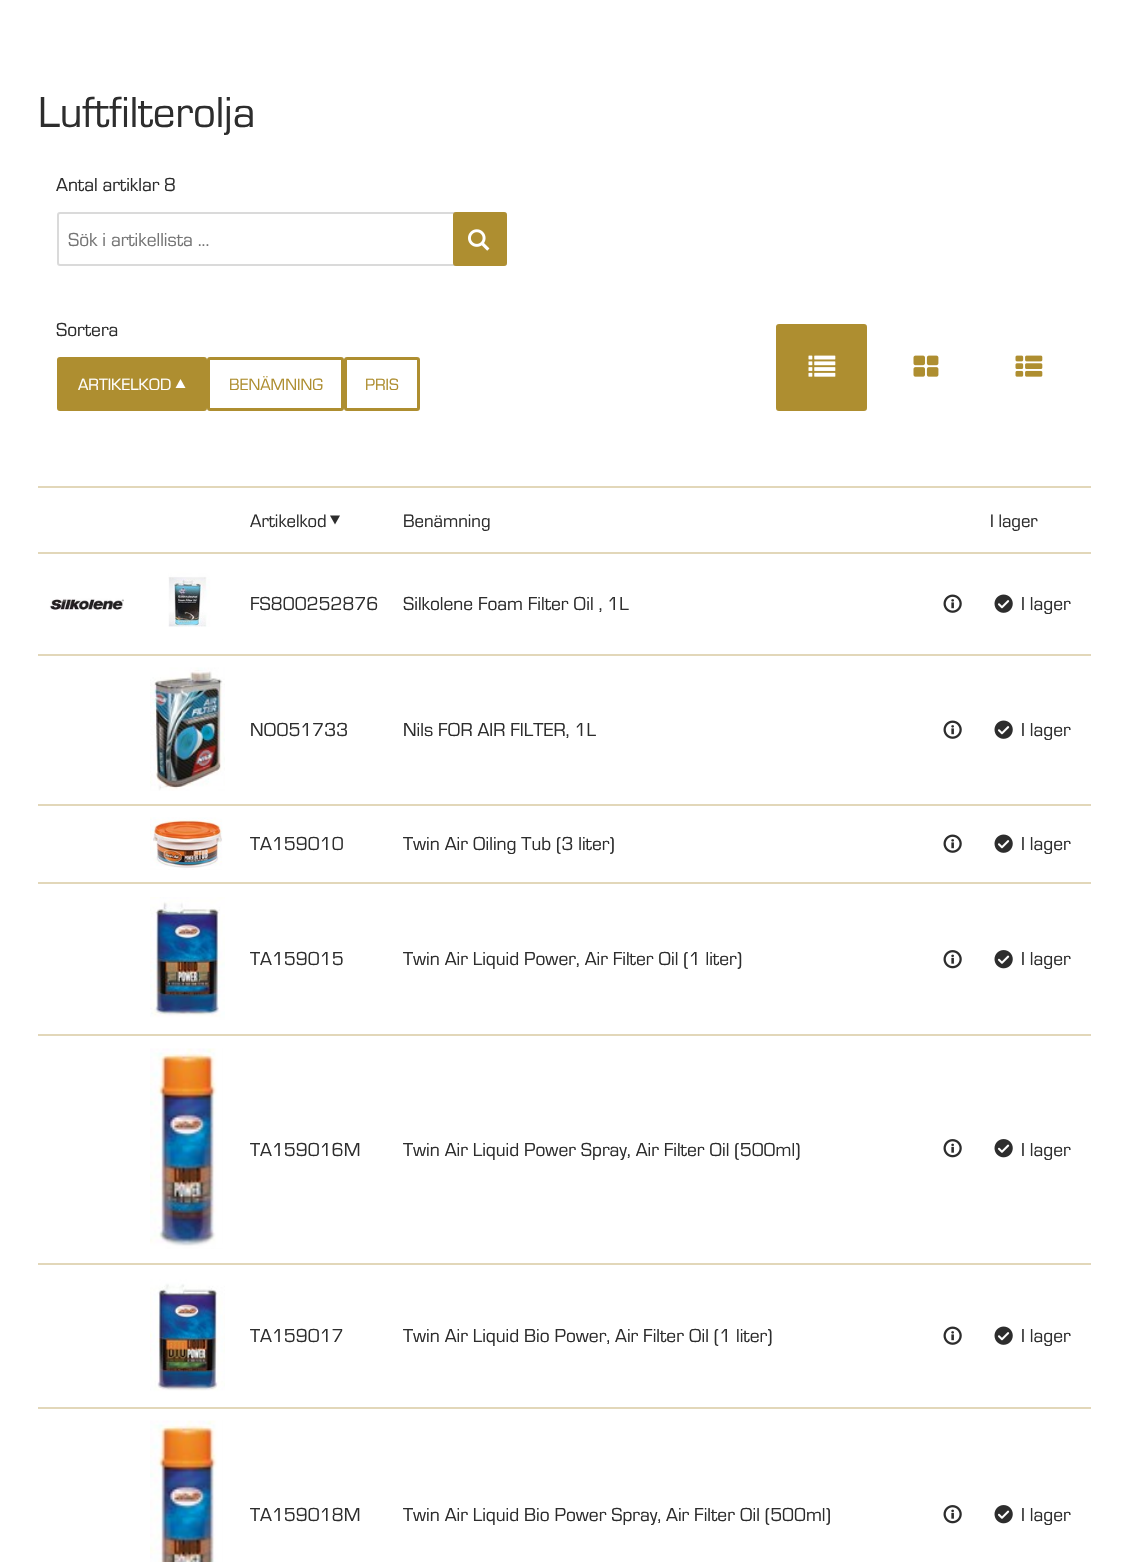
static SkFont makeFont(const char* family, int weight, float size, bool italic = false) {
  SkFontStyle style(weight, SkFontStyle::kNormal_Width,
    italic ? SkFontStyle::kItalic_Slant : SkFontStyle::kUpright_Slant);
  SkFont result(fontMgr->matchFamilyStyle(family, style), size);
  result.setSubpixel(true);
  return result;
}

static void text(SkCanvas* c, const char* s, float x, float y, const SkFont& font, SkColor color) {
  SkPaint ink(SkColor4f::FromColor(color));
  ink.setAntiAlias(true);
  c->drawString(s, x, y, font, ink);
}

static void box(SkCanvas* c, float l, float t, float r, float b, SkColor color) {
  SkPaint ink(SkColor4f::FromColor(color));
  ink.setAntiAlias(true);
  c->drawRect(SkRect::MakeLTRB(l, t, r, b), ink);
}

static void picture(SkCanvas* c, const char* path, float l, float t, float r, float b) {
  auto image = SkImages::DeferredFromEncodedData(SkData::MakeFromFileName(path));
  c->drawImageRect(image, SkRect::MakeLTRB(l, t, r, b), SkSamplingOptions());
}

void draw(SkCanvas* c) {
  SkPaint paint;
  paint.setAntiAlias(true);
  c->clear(0xffffffff);
  SkFont face1 = makeFont("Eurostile", 400, 45);
  text(c, "Luftfilterolja", 38, 127, face1, 0xff2d2d2d);
  SkFont face2 = makeFont("Eurostile", 400, 19.5f);
  text(c, "Antal artiklar", 56, 191, face2, 0xff2d2d2d);
  text(c, "8", 164, 191, face2, 0xff2d2d2d);
  paint.setStyle(SkPaint::kStroke_Style);
  paint.setStrokeWidth(2);
  paint.setColor(0xffdadada);
  c->drawRoundRect(SkRect::MakeLTRB(58, 213, 506, 265), 2, 2, paint);
  text(c, "Sök i artikellista ...", 68, 246, face2, 0xff757575);
  paint.setStyle(SkPaint::kFill_Style);
  paint.setColor(0xffae8e30);
  c->drawRoundRect(SkRect::MakeLTRB(454.5f, 213.5f, 505.5f, 264.5f), 1.5f, 1.5f, paint);
  paint.setStyle(SkPaint::kStroke_Style);
  paint.setStrokeWidth(3);
  c->drawRoundRect(SkRect::MakeLTRB(454.5f, 213.5f, 505.5f, 264.5f), 1.5f, 1.5f, paint);
  picture(c, "img_01.png", 468, 229, 490, 251);
  text(c, "Sortera", 56, 336, face2, 0xff2d2d2d);
  paint.setStyle(SkPaint::kFill_Style);
  c->drawRoundRect(SkRect::MakeLTRB(58.5f, 358.5f, 205.5f, 409.5f), 1.5f, 1.5f, paint);
  paint.setStyle(SkPaint::kStroke_Style);
  c->drawRoundRect(SkRect::MakeLTRB(58.5f, 358.5f, 205.5f, 409.5f), 1.5f, 1.5f, paint);
  SkFont face3 = makeFont("Eurostile", 400, 17);
  text(c, "ARTIKELKOD", 78, 390, face3, 0xffffffff);
  paint.setStyle(SkPaint::kFill_Style);
  paint.setColor(0xffffffff);
  c->drawPath(SkPathBuilder().moveTo(175.5f, 388).lineTo(180.5f, 379).lineTo(185.5f, 388).close().detach(), paint);
  paint.setStyle(SkPaint::kStroke_Style);
  paint.setColor(0xffae8e30);
  c->drawRoundRect(SkRect::MakeLTRB(208.5f, 358.5f, 342.5f, 409.5f), 1.5f, 1.5f, paint);
  text(c, "BENÄMNING", 229, 390, face3, 0xffae8e30);
  c->drawRoundRect(SkRect::MakeLTRB(345.5f, 358.5f, 418.5f, 409.5f), 1.5f, 1.5f, paint);
  text(c, "PRIS", 365, 390, face3, 0xffae8e30);
  paint.setStyle(SkPaint::kFill_Style);
  c->drawRoundRect(SkRect::MakeLTRB(777.5f, 325.5f, 865.5f, 409.5f), 1.5f, 1.5f, paint);
  paint.setStyle(SkPaint::kStroke_Style);
  c->drawRoundRect(SkRect::MakeLTRB(777.5f, 325.5f, 865.5f, 409.5f), 1.5f, 1.5f, paint);
  picture(c, "img_02.png", 808, 355, 836, 377);
  picture(c, "img_03.png", 913, 355, 939, 377);
  picture(c, "img_04.png", 1015, 355, 1043, 377);
  box(c, 38, 486, 1091, 488, 0xffe2d7b9);
  SkFont face4 = makeFont("Eurostile", 400, 18.75f);
  text(c, "Artikelkod", 250, 527, face4, 0xff2d2d2d);
  paint.setStyle(SkPaint::kFill_Style);
  paint.setColor(0xff2d2d2d);
  c->drawPath(SkPathBuilder().moveTo(340, 515.5f).lineTo(335, 524.5f).lineTo(330, 515.5f).close().detach(), paint);
  text(c, "Benämning", 403, 527, face4, 0xff2d2d2d);
  text(c, "I lager", 990, 527, face4, 0xff2d2d2d);
  box(c, 38, 552, 1091, 554, 0xffe2d7b9);
  picture(c, "img_05.png", 49, 598, 124, 610);
  picture(c, "img_06.png", 152, 569, 223, 640);
  text(c, "FS800252876", 250, 610, face2, 0xff2d2d2d);
  text(c, "Silkolene Foam Filter Oil , 1L", 403, 610, face2, 0xff2d2d2d);
  picture(c, "img_07.png", 943, 594, 962, 613);
  picture(c, "img_08.png", 994, 594, 1013, 613);
  text(c, "I lager", 1021, 610, face2, 0xff2d2d2d);
  box(c, 38, 654, 1091, 656, 0xffe2d7b9);
  picture(c, "img_09.png", 150, 667, 225, 791);
  text(c, "NO051733", 250, 736, face2, 0xff2d2d2d);
  text(c, "Nils FOR AIR FILTER, 1L", 403, 736, face2, 0xff2d2d2d);
  picture(c, "img_07.png", 943, 720, 962, 739);
  picture(c, "img_08.png", 994, 720, 1013, 739);
  text(c, "I lager", 1021, 736, face2, 0xff2d2d2d);
  box(c, 38, 804, 1091, 806, 0xffe2d7b9);
  picture(c, "img_10.png", 150, 817, 223, 870);
  text(c, "TA159010", 250, 850, face2, 0xff2d2d2d);
  text(c, "Twin Air Oiling Tub (3 liter)", 403, 850, face2, 0xff2d2d2d);
  picture(c, "img_07.png", 943, 834, 962, 853);
  picture(c, "img_08.png", 994, 834, 1013, 853);
  text(c, "I lager", 1021, 850, face2, 0xff2d2d2d);
  box(c, 38, 882, 1091, 884, 0xffe2d7b9);
  picture(c, "img_11.png", 150, 897, 225, 1020);
  text(c, "TA159015", 250, 965, face2, 0xff2d2d2d);
  text(c, "Twin Air Liquid Power, Air Filter Oil (1 liter)", 403, 965, face2, 0xff2d2d2d);
  picture(c, "img_12.png", 943, 950, 962, 969);
  picture(c, "img_13.png", 994, 950, 1013, 969);
  text(c, "I lager", 1021, 965, face2, 0xff2d2d2d);
  box(c, 38, 1034, 1091, 1036, 0xffe2d7b9);
  picture(c, "img_14.png", 150, 1048, 223, 1249);
  text(c, "TA159016M", 250, 1156, face2, 0xff2d2d2d);
  text(c, "Twin Air Liquid Power Spray, Air Filter Oil (500ml)", 403, 1156, face2, 0xff2d2d2d);
  picture(c, "img_12.png", 943, 1139, 962, 1158);
  picture(c, "img_13.png", 994, 1139, 1013, 1158);
  text(c, "I lager", 1021, 1156, face2, 0xff2d2d2d);
  box(c, 38, 1263, 1091, 1265, 0xffe2d7b9);
  picture(c, "img_15.png", 150, 1279, 225, 1393);
  text(c, "TA159017", 250, 1342, face2, 0xff2d2d2d);
  text(c, "Twin Air Liquid Bio Power, Air Filter Oil (1 liter)", 403, 1342, face2, 0xff2d2d2d);
  picture(c, "img_07.png", 943, 1326, 962, 1345);
  picture(c, "img_08.png", 994, 1326, 1013, 1345);
  text(c, "I lager", 1021, 1342, face2, 0xff2d2d2d);
  box(c, 38, 1407, 1091, 1409, 0xffe2d7b9);
  picture(c, "img_16.png", 150, 1420, 223, 1562);
  text(c, "TA159018M", 250, 1521, face2, 0xff2d2d2d);
  text(c, "Twin Air Liquid Bio Power Spray, Air Filter Oil (500ml)", 403, 1521, face2, 0xff2d2d2d);
  picture(c, "img_12.png", 943, 1505, 962, 1524);
  picture(c, "img_13.png", 994, 1505, 1013, 1524);
  text(c, "I lager", 1021, 1521, face2, 0xff2d2d2d);
}
